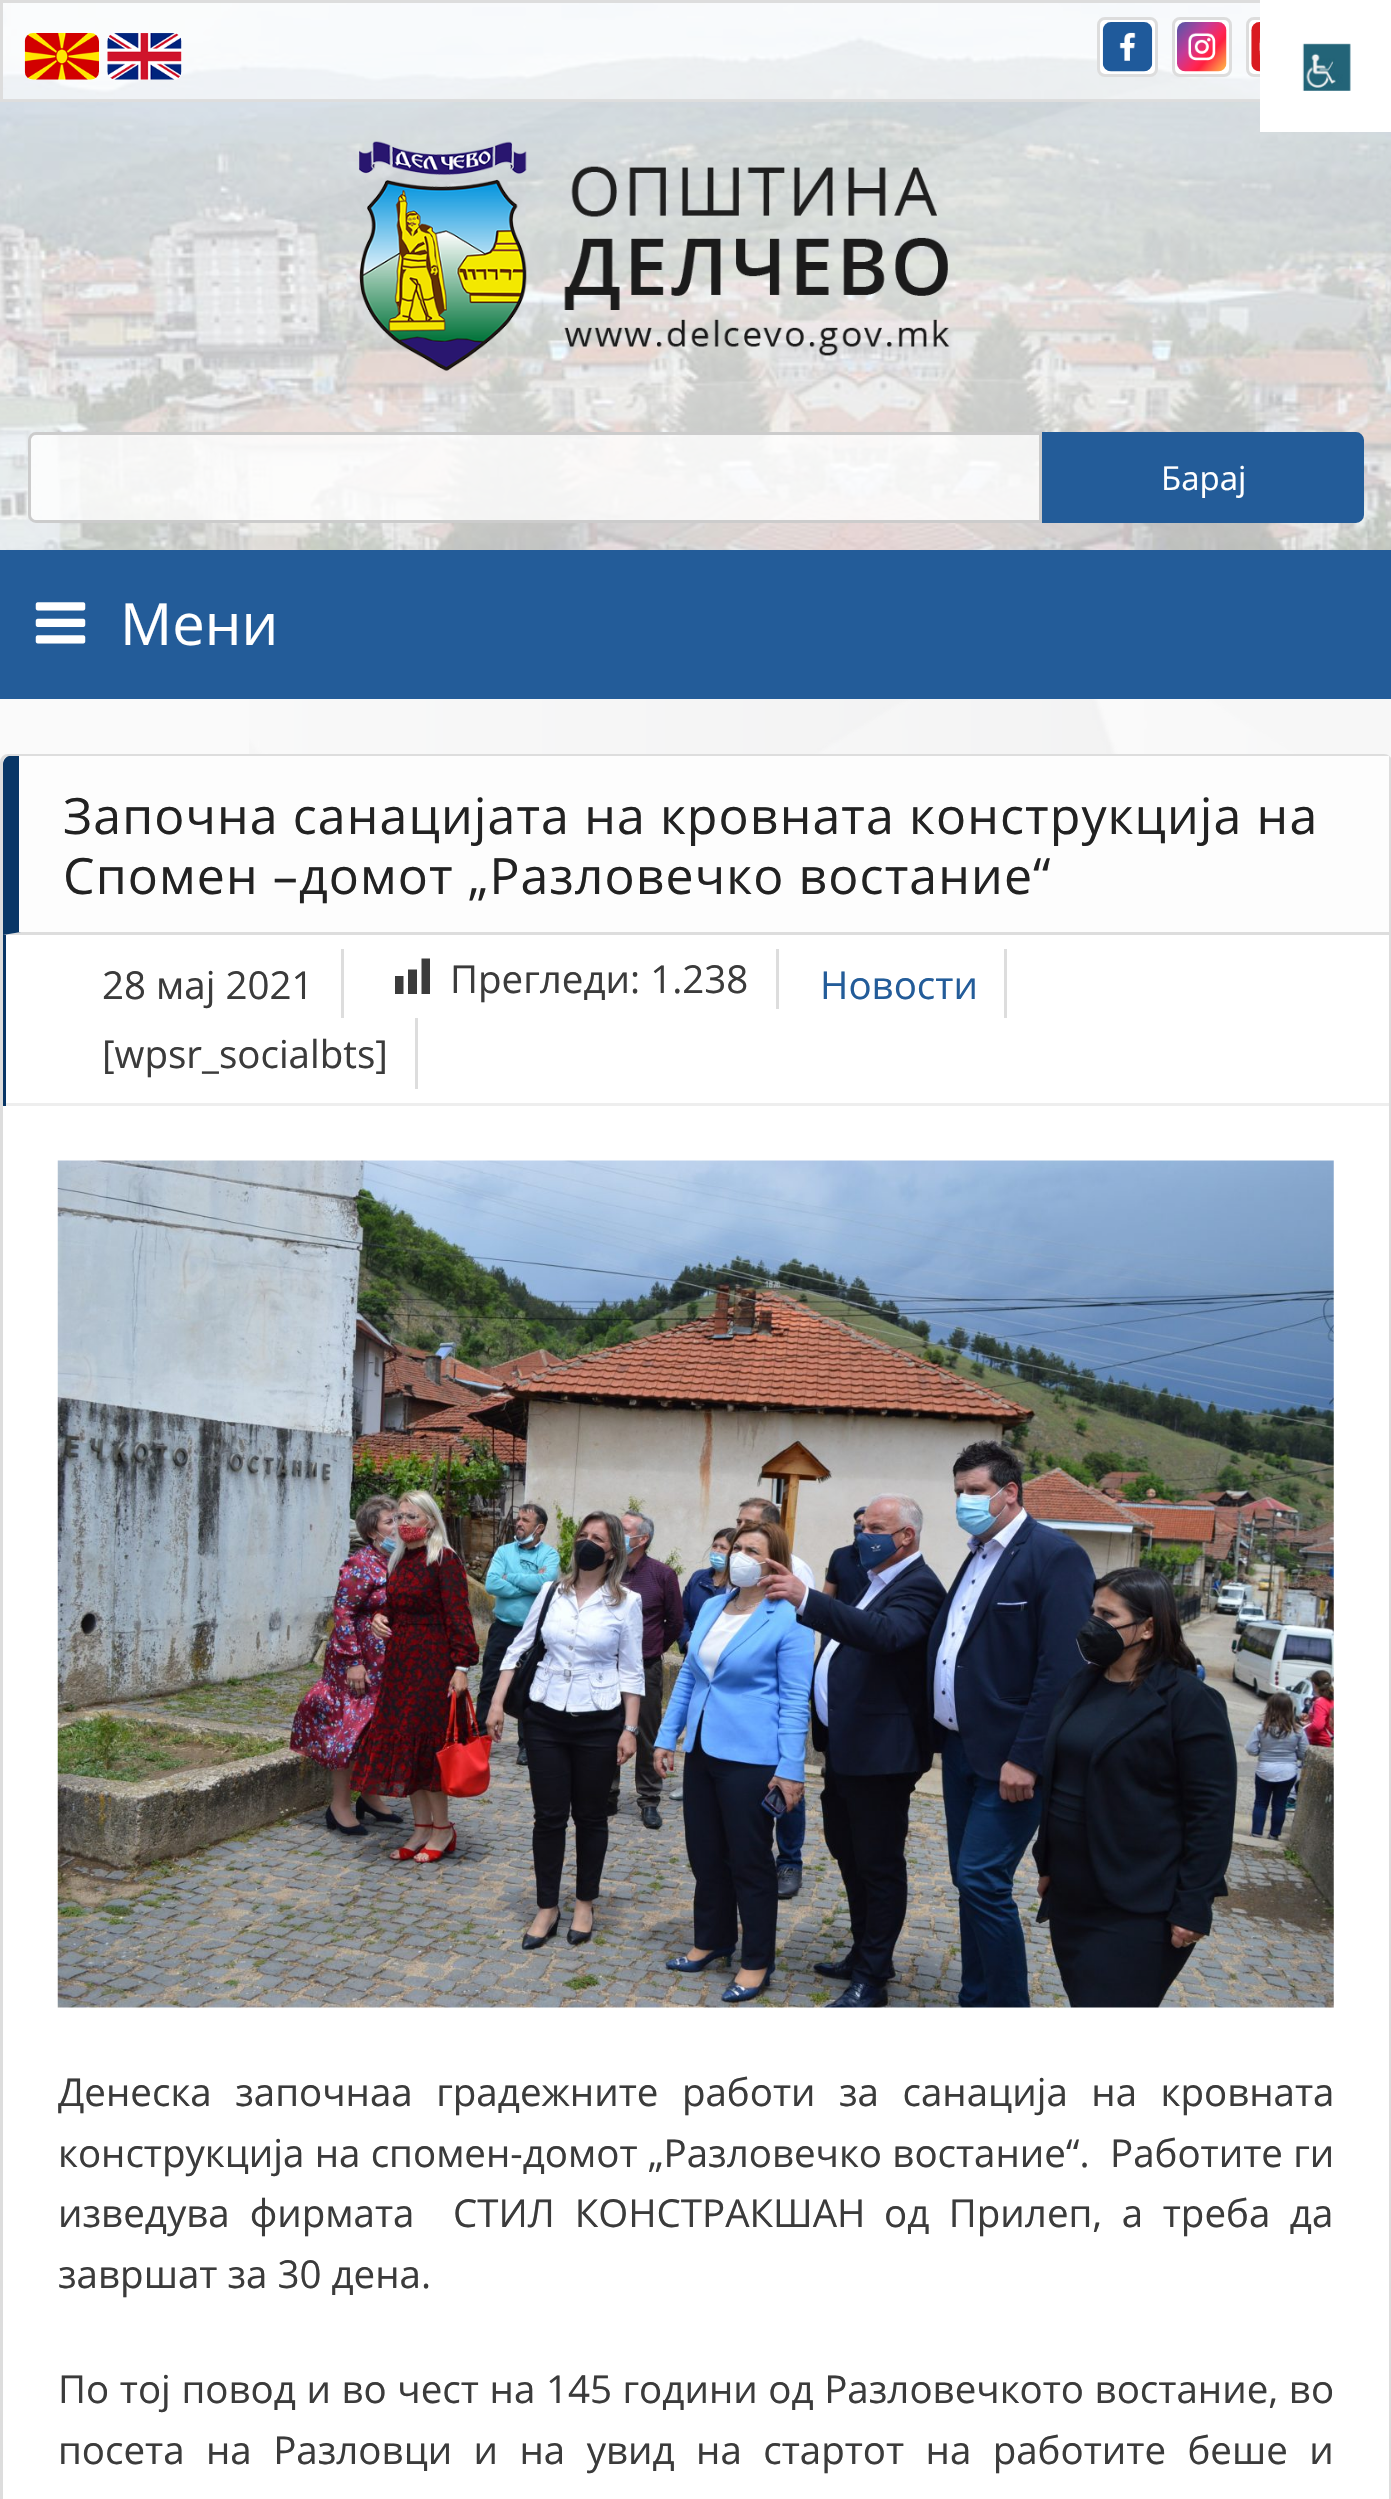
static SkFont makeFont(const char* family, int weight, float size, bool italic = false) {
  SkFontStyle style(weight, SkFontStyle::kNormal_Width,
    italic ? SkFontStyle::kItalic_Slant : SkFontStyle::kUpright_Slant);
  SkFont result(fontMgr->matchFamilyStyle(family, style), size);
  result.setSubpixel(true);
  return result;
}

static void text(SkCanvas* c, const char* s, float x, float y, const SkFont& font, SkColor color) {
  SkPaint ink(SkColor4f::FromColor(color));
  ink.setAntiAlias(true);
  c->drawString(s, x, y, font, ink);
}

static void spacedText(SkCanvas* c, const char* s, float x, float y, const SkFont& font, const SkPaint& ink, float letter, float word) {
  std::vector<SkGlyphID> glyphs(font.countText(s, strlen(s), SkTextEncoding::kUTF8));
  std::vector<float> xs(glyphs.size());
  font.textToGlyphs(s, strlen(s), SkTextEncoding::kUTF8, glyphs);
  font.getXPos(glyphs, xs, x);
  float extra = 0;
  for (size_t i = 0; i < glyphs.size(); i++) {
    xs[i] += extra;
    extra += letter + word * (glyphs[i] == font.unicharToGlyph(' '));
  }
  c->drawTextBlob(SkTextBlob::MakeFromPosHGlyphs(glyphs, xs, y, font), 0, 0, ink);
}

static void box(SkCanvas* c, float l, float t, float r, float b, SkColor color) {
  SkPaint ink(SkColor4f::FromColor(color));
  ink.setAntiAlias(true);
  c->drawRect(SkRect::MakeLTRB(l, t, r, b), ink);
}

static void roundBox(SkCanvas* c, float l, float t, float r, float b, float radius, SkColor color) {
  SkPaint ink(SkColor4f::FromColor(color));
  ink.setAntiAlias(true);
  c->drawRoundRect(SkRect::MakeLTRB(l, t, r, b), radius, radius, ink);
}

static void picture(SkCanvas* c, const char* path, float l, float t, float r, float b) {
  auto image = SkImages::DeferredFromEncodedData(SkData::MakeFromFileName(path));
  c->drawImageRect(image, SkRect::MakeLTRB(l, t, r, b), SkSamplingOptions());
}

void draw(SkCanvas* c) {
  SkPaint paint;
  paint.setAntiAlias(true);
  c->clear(0xfffafafa);
  picture(c, "img_01.png", 249, 699, 1391, 759);
  picture(c, "img_03.png", 0, 3, 1391, 550);
  picture(c, "img_04.png", 0, 55, 1391, 550);
  box(c, 3, 3, 1260, 99, 0x99ffffff);
  paint.setStyle(SkPaint::kStroke_Style);
  paint.setStrokeWidth(3);
  paint.setColor(0xffdddddd);
  c->drawRect(SkRect::MakeLTRB(1.5f, 1.5f, 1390.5f, 100.5f), paint);
  paint.setStyle(SkPaint::kFill_Style);
  paint.setColor(0xffffffff);
  c->drawRoundRect(SkRect::MakeLTRB(1247.5f, 18.5f, 1304.5f, 75.5f), 6.5f, 6.5f, paint);
  paint.setStyle(SkPaint::kStroke_Style);
  paint.setColor(0xffdddddd);
  c->drawRoundRect(SkRect::MakeLTRB(1247.5f, 18.5f, 1304.5f, 75.5f), 6.5f, 6.5f, paint);
  box(c, 1260, 0, 1391, 132, 0xffffffff);
  picture(c, "img_02.png", 1302, 43, 1351, 91);
  roundBox(c, 25, 33, 99, 80, 8, 0xffffffff);
  picture(c, "img_05.png", 24, 33, 99, 80);
  roundBox(c, 107, 33, 182, 80, 8, 0xffffffff);
  picture(c, "img_06.png", 107, 33, 182, 80);
  paint.setStyle(SkPaint::kFill_Style);
  paint.setColor(0xffffffff);
  c->drawRoundRect(SkRect::MakeLTRB(1098.5f, 18.5f, 1156.5f, 75.5f), 6.5f, 6.5f, paint);
  paint.setStyle(SkPaint::kStroke_Style);
  paint.setColor(0xffdddddd);
  c->drawRoundRect(SkRect::MakeLTRB(1098.5f, 18.5f, 1156.5f, 75.5f), 6.5f, 6.5f, paint);
  picture(c, "img_07.png", 1102, 22, 1153, 72);
  paint.setStyle(SkPaint::kFill_Style);
  paint.setColor(0xffffffff);
  c->drawRoundRect(SkRect::MakeLTRB(1173.5f, 18.5f, 1230.5f, 75.5f), 6.5f, 6.5f, paint);
  paint.setStyle(SkPaint::kStroke_Style);
  paint.setColor(0xffdddddd);
  c->drawRoundRect(SkRect::MakeLTRB(1173.5f, 18.5f, 1230.5f, 75.5f), 6.5f, 6.5f, paint);
  picture(c, "img_08.png", 1177, 22, 1227, 72);
  picture(c, "img_09.png", 1251, 22, 1260, 72);
  picture(c, "img_10.png", 359, 141, 950, 371);
  paint.setStyle(SkPaint::kFill_Style);
  paint.setColor(0xccffffff);
  c->drawPath(SkPathBuilder().moveTo(36, 433.5f).lineTo(1040.5f, 433.5f).lineTo(1040.5f, 521.5f).lineTo(36, 521.5f).cubicTo(32.5f, 521.5f, 29.5f, 518.5f, 29.5f, 515).lineTo(29.5f, 440).cubicTo(29.5f, 436.5f, 32.5f, 433.5f, 36, 433.5f).close().detach(), paint);
  paint.setStyle(SkPaint::kStroke_Style);
  paint.setColor(0xffcccccc);
  c->drawPath(SkPathBuilder().moveTo(36, 433.5f).lineTo(1040.5f, 433.5f).lineTo(1040.5f, 521.5f).lineTo(36, 521.5f).cubicTo(32.5f, 521.5f, 29.5f, 518.5f, 29.5f, 515).lineTo(29.5f, 440).cubicTo(29.5f, 436.5f, 32.5f, 433.5f, 36, 433.5f).close().detach(), paint);
  paint.setStyle(SkPaint::kFill_Style);
  paint.setColor(0xff235c99);
  c->drawPath(SkPathBuilder().moveTo(1043.5f, 433.5f).lineTo(1356, 433.5f).cubicTo(1359.5f, 433.5f, 1362.5f, 436.5f, 1362.5f, 440).lineTo(1362.5f, 515).cubicTo(1362.5f, 518.5f, 1359.5f, 521.5f, 1356, 521.5f).lineTo(1043.5f, 521.5f).close().detach(), paint);
  paint.setStyle(SkPaint::kStroke_Style);
  c->drawPath(SkPathBuilder().moveTo(1043.5f, 433.5f).lineTo(1356, 433.5f).cubicTo(1359.5f, 433.5f, 1362.5f, 436.5f, 1362.5f, 440).lineTo(1362.5f, 515).cubicTo(1362.5f, 518.5f, 1359.5f, 521.5f, 1356, 521.5f).lineTo(1043.5f, 521.5f).close().detach(), paint);
  SkFont face1 = makeFont("Open Sans", 400, 33);
  text(c, "Барај", 1161, 490, face1, 0xffffffff);
  box(c, 0, 550, 1391, 699, 0xff235c99);
  picture(c, "img_11.png", 35, 602, 86, 644);
  SkFont face2 = makeFont("Open Sans", 400, 58);
  text(c, "Мени", 120, 645, face2, 0xffffffff);
  paint.setStyle(SkPaint::kFill_Style);
  paint.setColor(0xffffffff);
  c->drawRoundRect(SkRect::MakeLTRB(1.5f, 755.5f, 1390.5f, 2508.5f), 6.5f, 6.5f, paint);
  paint.setStyle(SkPaint::kStroke_Style);
  paint.setColor(0xffdddddd);
  c->drawRoundRect(SkRect::MakeLTRB(1.5f, 755.5f, 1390.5f, 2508.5f), 6.5f, 6.5f, paint);
  paint.setStyle(SkPaint::kFill_Style);
  paint.setColor(0xfffdfdfd);
  c->drawPath(SkPathBuilder().moveTo(11, 756).lineTo(1389, 756).lineTo(1389, 935).lineTo(3, 935).lineTo(3, 764).cubicTo(3, 759.5f, 6.5f, 756, 11, 756).close().detach(), paint);
  paint.setColor(0xffdddddd);
  c->drawPath(SkPathBuilder().moveTo(1389, 935).lineTo(1389, 932).lineTo(21, 932).lineTo(3, 935).close().detach(), paint);
  paint.setColor(0xff083666);
  c->drawPath(SkPathBuilder().moveTo(3, 935).lineTo(3, 764).cubicTo(3, 761, 5, 757, 9, 756).lineTo(19, 756).lineTo(19, 932).lineTo(21, 932).close().detach(), paint);
  SkFont face3 = makeFont("Open Sans", 400, 50.05f);
  paint.setColor(0xff222222);
  spacedText(c, "Започна санацијата на кровната конструкција на", 63, 834, face3, paint, 1.1f, 0);
  spacedText(c, "Спомен –домот „Разловечко востание“", 63, 894, face3, paint, 1.1f, 0);
  box(c, 3, 1103, 1389, 1106, 0xffeeeeee);
  box(c, 3, 935, 6, 1106, 0xff083666);
  box(c, 341, 949, 344, 1018, 0xffdddddd);
  SkFont face4 = makeFont("Open Sans", 400, 38.5f);
  text(c, "28 мај 2021", 102, 999, face4, 0xff3b3b3b);
  box(c, 776, 949, 779, 1009, 0xffdddddd);
  paint.setColor(0xff3b3b3b);
  c->drawPath(SkPathBuilder().moveTo(430, 994).lineTo(430, 958.5f).lineTo(421.5f, 958.5f).lineTo(421.5f, 994).close().moveTo(417, 994).lineTo(417, 969.5f).lineTo(408, 969.5f).lineTo(408, 994).close().moveTo(403.5f, 994).lineTo(403.5f, 976).lineTo(395, 976).lineTo(395, 994).close().detach(), paint);
  text(c, "Прегледи: 1.238", 450, 993, face4, 0xff3b3b3b);
  box(c, 1004, 949, 1007, 1018, 0xffdddddd);
  text(c, "Новости", 820, 999, face4, 0xff235c99);
  box(c, 415, 1018, 418, 1089, 0xffdddddd);
  text(c, "[wpsr_socialbts]", 102, 1068, face4, 0xff3b3b3b);
  picture(c, "img_12.png", 57, 1160, 1334, 2008);
  spacedText(c, "Денеска започнаа градежните работи за санација на кровната", 58, 2106, face4, paint, 0, 13.5f);
  spacedText(c, "конструкција на спомен-домот „Разловечко востание“.  Работите ги", 58, 2167, face4, paint, 0, 0.25f);
  spacedText(c, "изведува фирмата", 58, 2227, face4, paint, 0, 10);
  spacedText(c, "СТИЛ КОНСТРАКШАН", 453, 2227, face4, paint, 0, 10);
  spacedText(c, "од Прилеп, а треба да", 884, 2227, face4, paint, 0, 9.5f);
  text(c, "завршат за 30 дена.", 58, 2288, face4, 0xff3b3b3b);
  spacedText(c, "По тој повод и во чест на 145 години од Разловечкото востание, во", 58, 2403, face4, paint, 0, 0.6f);
  spacedText(c, "посета на Разловци и на увид на стартот на работите беше и", 58, 2464, face4, paint, 0, 11.4f);
}
